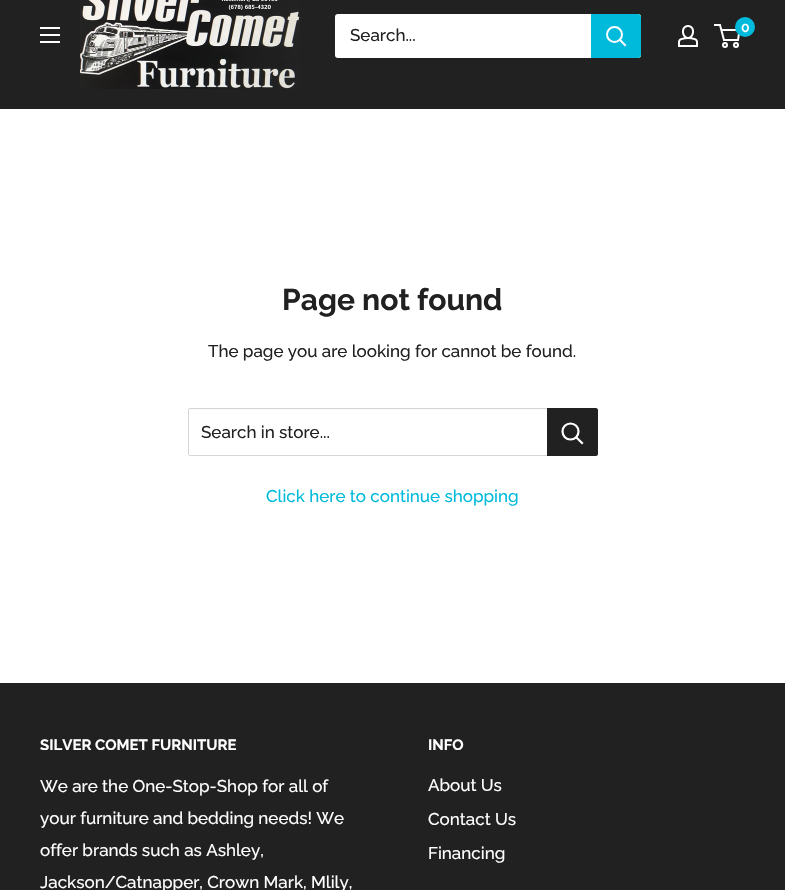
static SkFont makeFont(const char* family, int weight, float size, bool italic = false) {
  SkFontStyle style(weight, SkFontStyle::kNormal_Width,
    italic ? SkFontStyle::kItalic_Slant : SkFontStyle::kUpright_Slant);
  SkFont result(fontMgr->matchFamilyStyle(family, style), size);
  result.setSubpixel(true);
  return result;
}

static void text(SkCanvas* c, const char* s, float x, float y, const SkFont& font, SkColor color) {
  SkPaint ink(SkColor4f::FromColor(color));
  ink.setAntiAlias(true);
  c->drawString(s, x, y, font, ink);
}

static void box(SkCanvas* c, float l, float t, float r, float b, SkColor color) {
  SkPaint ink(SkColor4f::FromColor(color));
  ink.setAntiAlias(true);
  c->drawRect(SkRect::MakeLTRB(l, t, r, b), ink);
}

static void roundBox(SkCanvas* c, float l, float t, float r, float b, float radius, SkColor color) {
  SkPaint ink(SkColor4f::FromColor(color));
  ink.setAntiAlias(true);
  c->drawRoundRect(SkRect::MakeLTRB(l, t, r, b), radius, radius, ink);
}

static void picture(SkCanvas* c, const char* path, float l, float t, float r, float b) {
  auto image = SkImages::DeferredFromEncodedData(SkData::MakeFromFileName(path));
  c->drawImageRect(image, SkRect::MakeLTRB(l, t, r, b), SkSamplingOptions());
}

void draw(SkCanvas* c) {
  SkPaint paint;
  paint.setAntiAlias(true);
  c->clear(0xffffffff);
  box(c, 0, 0, 785, 109, 0xff212121);
  picture(c, "img_01.png", 40, 27, 60, 43);
  picture(c, "img_02.png", 80, 0, 300, 89);
  roundBox(c, 335, 14, 641, 58, 3, 0xffffffff);
  SkFont face1 = makeFont("Raleway", 500, 17);
  text(c, "Search...", 350, 41, face1, 0xff212121);
  paint.setColor(0xff00badb);
  c->drawPath(SkPathBuilder().moveTo(591, 14).lineTo(638, 14).cubicTo(639.5f, 14, 641, 15.5f, 641, 17).lineTo(641, 55).cubicTo(641, 56.5f, 639.5f, 58, 638, 58).lineTo(591, 58).close().detach(), paint);
  paint.setStyle(SkPaint::kStroke_Style);
  paint.setStrokeWidth(2);
  paint.setStrokeCap(SkPaint::kSquare_Cap);
  paint.setColor(0xffffffff);
  c->drawPath(SkPathBuilder().moveTo(625, 45).lineTo(620, 40).detach(), paint);
  paint.setStrokeCap(SkPaint::kButt_Cap);
  c->drawCircle(614.5f, 34.5f, 7.5f, paint);
  picture(c, "img_03.png", 678, 25, 698, 47);
  c->drawCircle(725, 45, 2, paint);
  c->drawCircle(736, 45, 2, paint);
  c->drawPath(SkPathBuilder().moveTo(721.5f, 30).lineTo(739.5f, 30).lineTo(738, 40).lineTo(724, 40).lineTo(720, 25).lineTo(714, 25).detach(), paint);
  paint.setStyle(SkPaint::kFill_Style);
  paint.setColor(0xff00badb);
  c->drawCircle(745, 27, 10, paint);
  SkFont face2 = makeFont("Raleway", 600, 14);
  text(c, "0", 741, 32, face2, 0xffffffff);
  SkFont face3 = makeFont("Raleway", 700, 30);
  text(c, "Page not found", 282, 310, face3, 0xff212121);
  text(c, "The page you are looking for cannot be found.", 208, 357, face1, 0xff212121);
  paint.setColor(0xfff8f8f8);
  c->drawPath(SkPathBuilder().moveTo(190, 410).lineTo(547, 410).lineTo(547, 409).lineTo(190, 409).cubicTo(189, 409, 189, 410, 189, 411).cubicTo(189, 410, 189, 410, 190, 410).close().detach(), paint);
  box(c, 189, 408, 547, 409, 0xffd4d6d8);
  box(c, 189, 455, 547, 456, 0xffd4d6d8);
  box(c, 188, 409, 189, 455, 0xffd4d6d8);
  text(c, "Search in store...", 201, 438, face1, 0xff212121);
  paint.setColor(0xff212121);
  c->drawPath(SkPathBuilder().moveTo(547, 408).lineTo(596, 408).cubicTo(597, 408, 598, 409, 598, 410).lineTo(598, 454).cubicTo(598, 455, 597, 456, 596, 456).lineTo(547, 456).close().detach(), paint);
  paint.setStyle(SkPaint::kStroke_Style);
  paint.setStrokeWidth(2.2f);
  paint.setStrokeCap(SkPaint::kSquare_Cap);
  paint.setColor(0xffffffff);
  c->drawPath(SkPathBuilder().moveTo(582, 443).lineTo(576.5f, 437.5f).detach(), paint);
  paint.setStrokeCap(SkPaint::kButt_Cap);
  c->drawCircle(570.5f, 431.5f, 8, paint);
  text(c, "Click here to continue shopping", 266, 502, face1, 0xff00badb);
  box(c, 0, 683, 785, 890, 0xff212121);
  SkFont face4 = makeFont("Raleway", 700, 15);
  text(c, "SILVER COMET FURNITURE", 40, 750, face4, 0xffffffff);
  text(c, "We are the One-Stop-Shop for all of", 40, 792, face1, 0xffffffff);
  text(c, "your furniture and bedding needs! We", 40, 824, face1, 0xffffffff);
  text(c, "offer brands such as Ashley,", 40, 856, face1, 0xffffffff);
  text(c, "Jackson/Catnapper, Crown Mark, Mlily,", 40, 888, face1, 0xffffffff);
  text(c, "INFO", 428, 750, face4, 0xffffffff);
  text(c, "About Us", 428, 791, face1, 0xffffffff);
  text(c, "Contact Us", 428, 825, face1, 0xffffffff);
  text(c, "Financing", 428, 859, face1, 0xffffffff);
}
